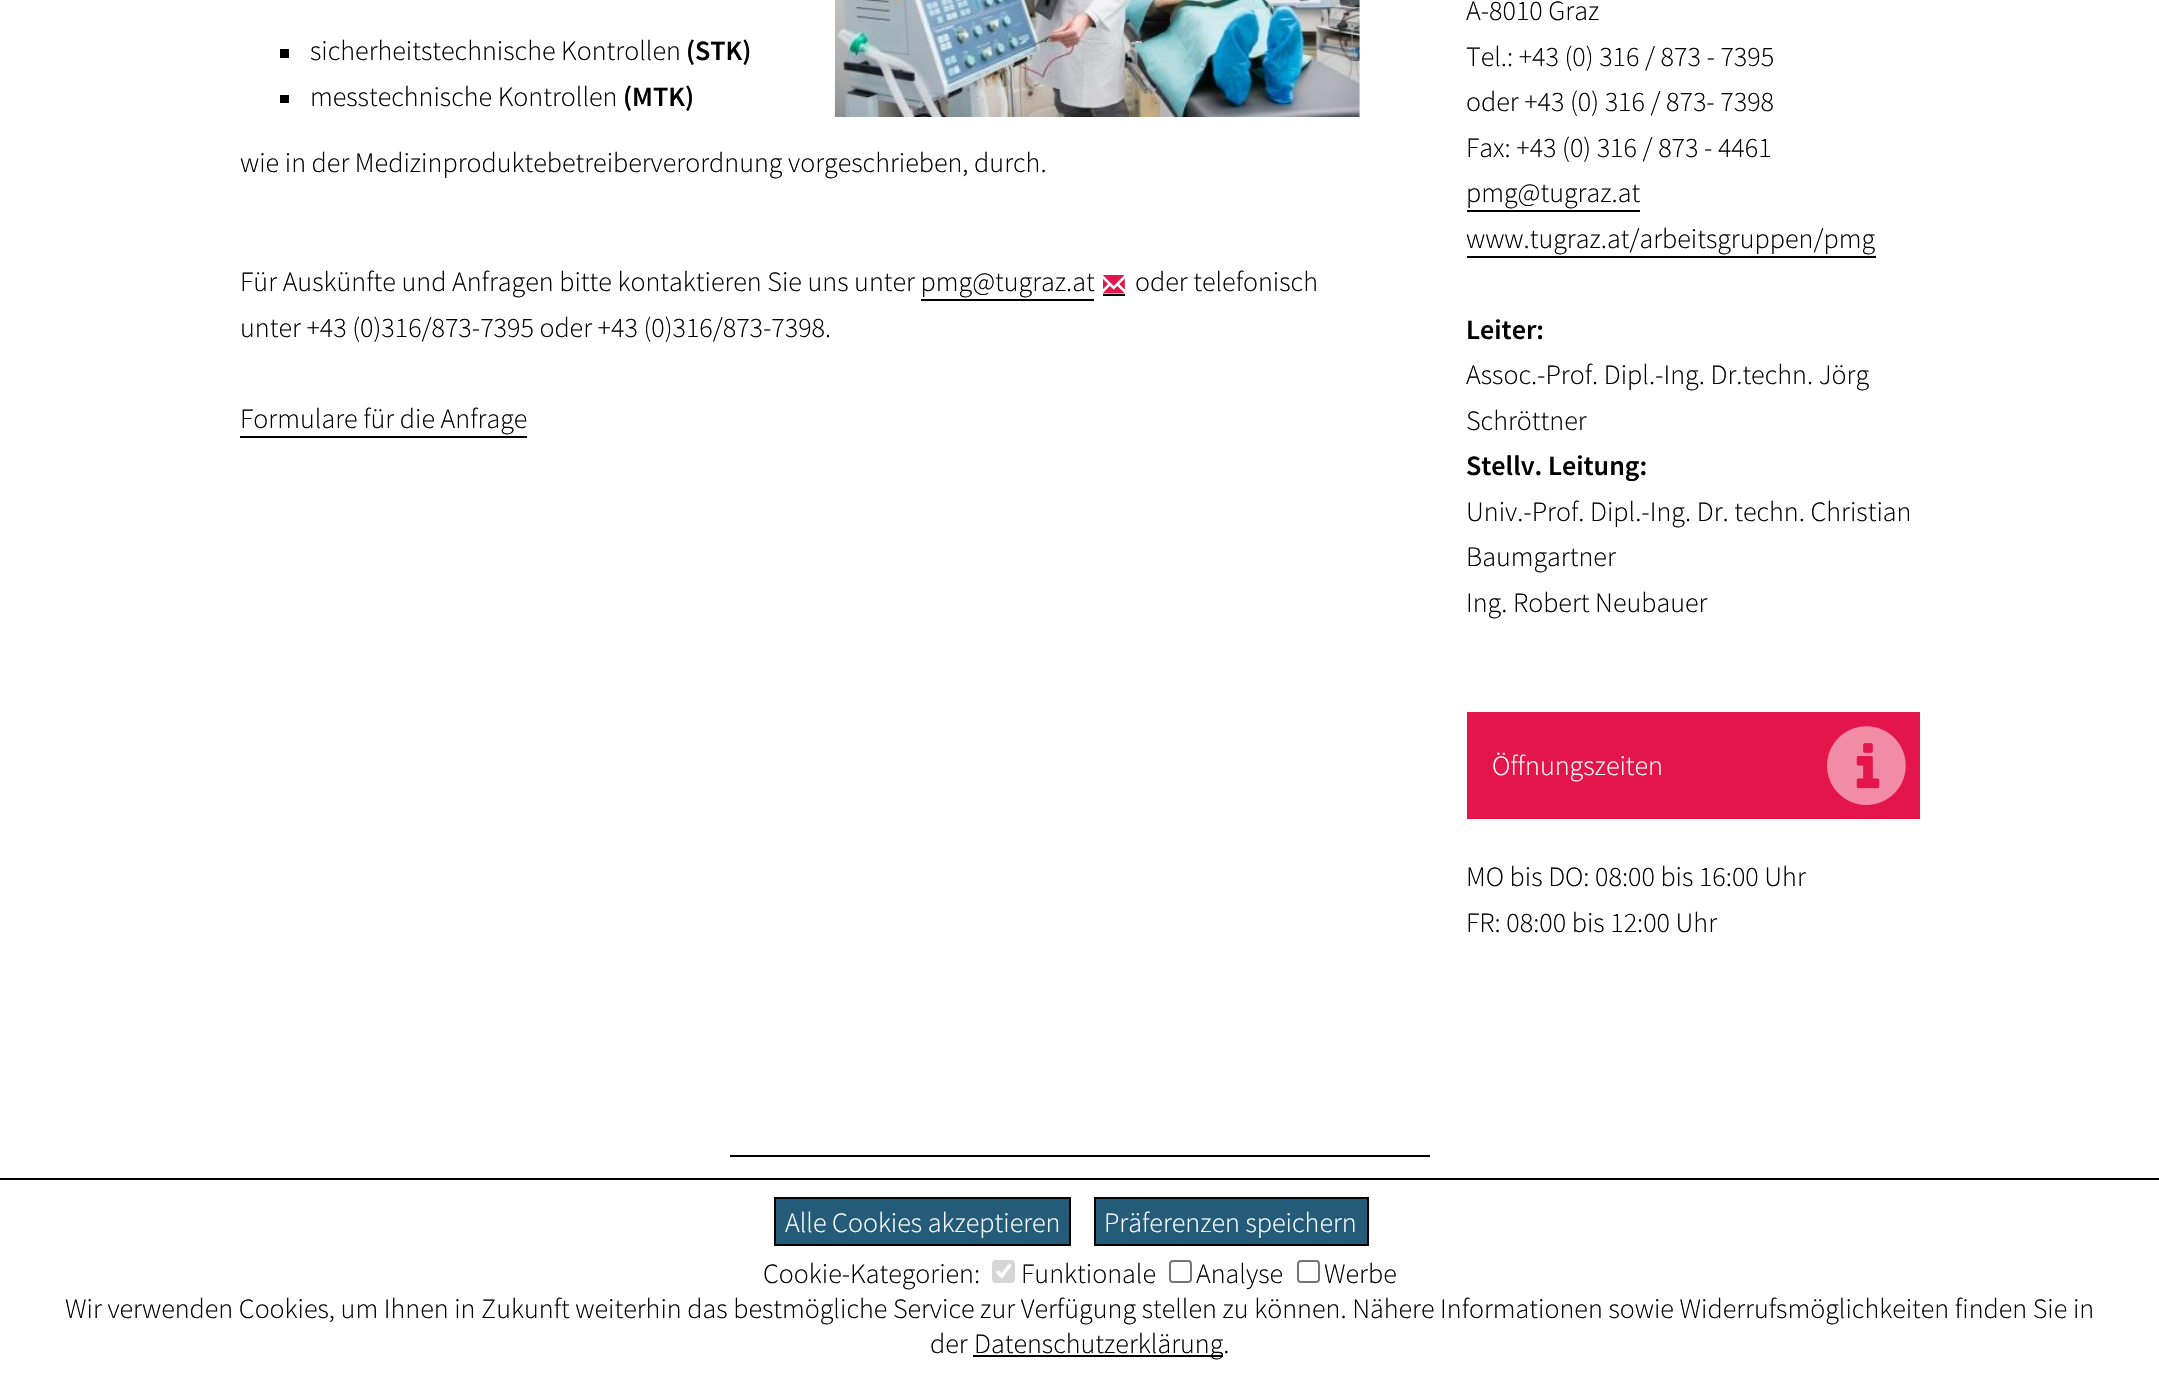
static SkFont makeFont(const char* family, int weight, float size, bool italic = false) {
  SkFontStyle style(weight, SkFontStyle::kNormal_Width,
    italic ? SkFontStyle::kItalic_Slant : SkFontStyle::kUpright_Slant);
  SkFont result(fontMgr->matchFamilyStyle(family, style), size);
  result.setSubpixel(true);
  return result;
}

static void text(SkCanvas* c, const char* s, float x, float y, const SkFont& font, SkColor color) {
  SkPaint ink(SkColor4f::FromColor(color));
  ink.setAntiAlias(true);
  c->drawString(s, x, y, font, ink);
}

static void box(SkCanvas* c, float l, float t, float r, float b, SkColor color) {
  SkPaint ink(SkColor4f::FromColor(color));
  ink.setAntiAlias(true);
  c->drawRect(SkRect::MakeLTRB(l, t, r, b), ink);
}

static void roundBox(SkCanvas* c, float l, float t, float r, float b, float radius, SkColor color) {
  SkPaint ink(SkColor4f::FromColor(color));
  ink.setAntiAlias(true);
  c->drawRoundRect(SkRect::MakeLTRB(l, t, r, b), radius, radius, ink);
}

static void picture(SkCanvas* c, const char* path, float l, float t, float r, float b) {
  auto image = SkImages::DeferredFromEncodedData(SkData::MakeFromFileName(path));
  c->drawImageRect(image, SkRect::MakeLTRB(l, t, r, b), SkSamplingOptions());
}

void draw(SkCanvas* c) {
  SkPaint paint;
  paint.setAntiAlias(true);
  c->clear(0xffffffff);
  box(c, 280, 49, 289, 58, 0xff000000);
  SkFont face1 = makeFont("Source Sans Pro", 300, 28);
  text(c, "sicherheitstechnische Kontrollen", 310, 60, face1, 0xff000000);
  SkFont face2 = makeFont("Source Sans Pro", 600, 28);
  text(c, "(STK)", 686, 60, face2, 0xff000000);
  box(c, 280, 95, 289, 103, 0xff000000);
  text(c, "messtechnische Kontrollen", 310, 106, face1, 0xff000000);
  text(c, "(MTK)", 623, 106, face2, 0xff000000);
  text(c, "wie in der Medizinproduktebetreiberverordnung vorgeschrieben, durch.", 240, 172, face1, 0xff000000);
  picture(c, "img_01.png", 834, 0, 1360, 117);
  text(c, "Für Auskünfte und Anfragen bitte kontaktieren Sie uns unter pmg@tugraz.at", 240, 291, face1, 0xff000000);
  text(c, "oder telefonisch", 1135, 291, face1, 0xff000000);
  box(c, 921, 299, 1094, 301, 0xff000000);
  box(c, 1103, 294, 1125, 296, 0xff000000);
  picture(c, "img_02.png", 1103, 275, 1125, 294);
  text(c, "unter +43 (0)316/873-7395 oder +43 (0)316/873-7398.", 240, 337, face1, 0xff000000);
  text(c, "Formulare für die Anfrage", 240, 428, face1, 0xff000000);
  box(c, 240, 436, 527, 438, 0xff000000);
  text(c, "A-8010 Graz", 1466, 20, face1, 0xff000000);
  text(c, "Tel.: +43 (0) 316 / 873 - 7395", 1466, 66, face1, 0xff000000);
  text(c, "oder +43 (0) 316 / 873- 7398", 1466, 111, face1, 0xff000000);
  text(c, "Fax: +43 (0) 316 / 873 - 4461", 1466, 157, face1, 0xff000000);
  text(c, "pmg@tugraz.at", 1466, 202, face1, 0xff000000);
  box(c, 1467, 210, 1640, 212, 0xff000000);
  text(c, "www.tugraz.at/arbeitsgruppen/pmg", 1466, 248, face1, 0xff000000);
  box(c, 1467, 256, 1876, 258, 0xff000000);
  text(c, "Leiter:", 1466, 339, face2, 0xff000000);
  text(c, "Assoc.-Prof. Dipl.-Ing. Dr.techn. Jörg", 1466, 384, face1, 0xff000000);
  text(c, "Schröttner", 1466, 430, face1, 0xff000000);
  text(c, "Stellv. Leitung:", 1466, 475, face2, 0xff000000);
  text(c, "Univ.-Prof. Dipl.-Ing. Dr. techn. Christian", 1466, 521, face1, 0xff000000);
  text(c, "Baumgartner", 1466, 566, face1, 0xff000000);
  text(c, "Ing. Robert Neubauer", 1466, 612, face1, 0xff000000);
  box(c, 1467, 712, 1920, 819, 0xffe4154b);
  text(c, "Öffnungszeiten", 1492, 775, face1, 0xffffffff);
  picture(c, "img_03.png", 1827, 726, 1906, 805);
  text(c, "MO bis DO: 08:00 bis 16:00 Uhr", 1466, 886, face1, 0xff000000);
  text(c, "FR: 08:00 bis 12:00 Uhr", 1466, 932, face1, 0xff000000);
  box(c, 730, 1155, 1430, 1157, 0xff000000);
  box(c, 0, 1178, 2159, 1180, 0xff000000);
  paint.setColor(0xff245b78);
  c->drawRect(SkRect::MakeLTRB(775, 1198, 1070, 1245), paint);
  paint.setStyle(SkPaint::kStroke_Style);
  paint.setStrokeWidth(2);
  paint.setColor(0xff000000);
  c->drawRect(SkRect::MakeLTRB(775, 1198, 1070, 1245), paint);
  text(c, "Alle Cookies akzeptieren", 785, 1232, face1, 0xffffffff);
  paint.setStyle(SkPaint::kFill_Style);
  paint.setColor(0xff245b78);
  c->drawRect(SkRect::MakeLTRB(1095, 1198, 1368, 1245), paint);
  paint.setStyle(SkPaint::kStroke_Style);
  paint.setColor(0xff000000);
  c->drawRect(SkRect::MakeLTRB(1095, 1198, 1368, 1245), paint);
  text(c, "Präferenzen speichern", 1104, 1232, face1, 0xffffffff);
  text(c, "Cookie-Kategorien:", 763, 1283, face1, 0xff000000);
  roundBox(c, 992, 1260, 1015, 1283, 4, 0xffd6d6d6);
  paint.setStrokeWidth(3.6f);
  paint.setColor(0xffffffff);
  c->drawPath(SkPathBuilder().moveTo(997, 1271.5f).lineTo(1001.5f, 1276).lineTo(1010.5f, 1264.5f).detach(), paint);
  text(c, "Funktionale", 1021, 1283, face1, 0xff000000);
  paint.setStrokeWidth(2);
  paint.setColor(0xff767676);
  c->drawRoundRect(SkRect::MakeLTRB(1170, 1261, 1191, 1282), 3, 3, paint);
  text(c, "Analyse", 1196, 1283, face1, 0xff000000);
  c->drawRoundRect(SkRect::MakeLTRB(1298, 1261, 1319, 1282), 3, 3, paint);
  text(c, "Werbe", 1324, 1283, face1, 0xff000000);
  text(c, "Wir verwenden Cookies, um Ihnen in Zukunft weiterhin das bestmögliche Service zur Verfügung stellen zu können. Nähere Informationen sowie Widerrufsmöglichkeiten finden Sie in", 65, 1318, face1, 0xff000000);
  text(c, "der", 930, 1353, face1, 0xff000000);
  box(c, 973, 1355, 1223, 1357, 0xff000000);
  text(c, "Datenschutzerklärung.", 974, 1353, face1, 0xff000000);
}
